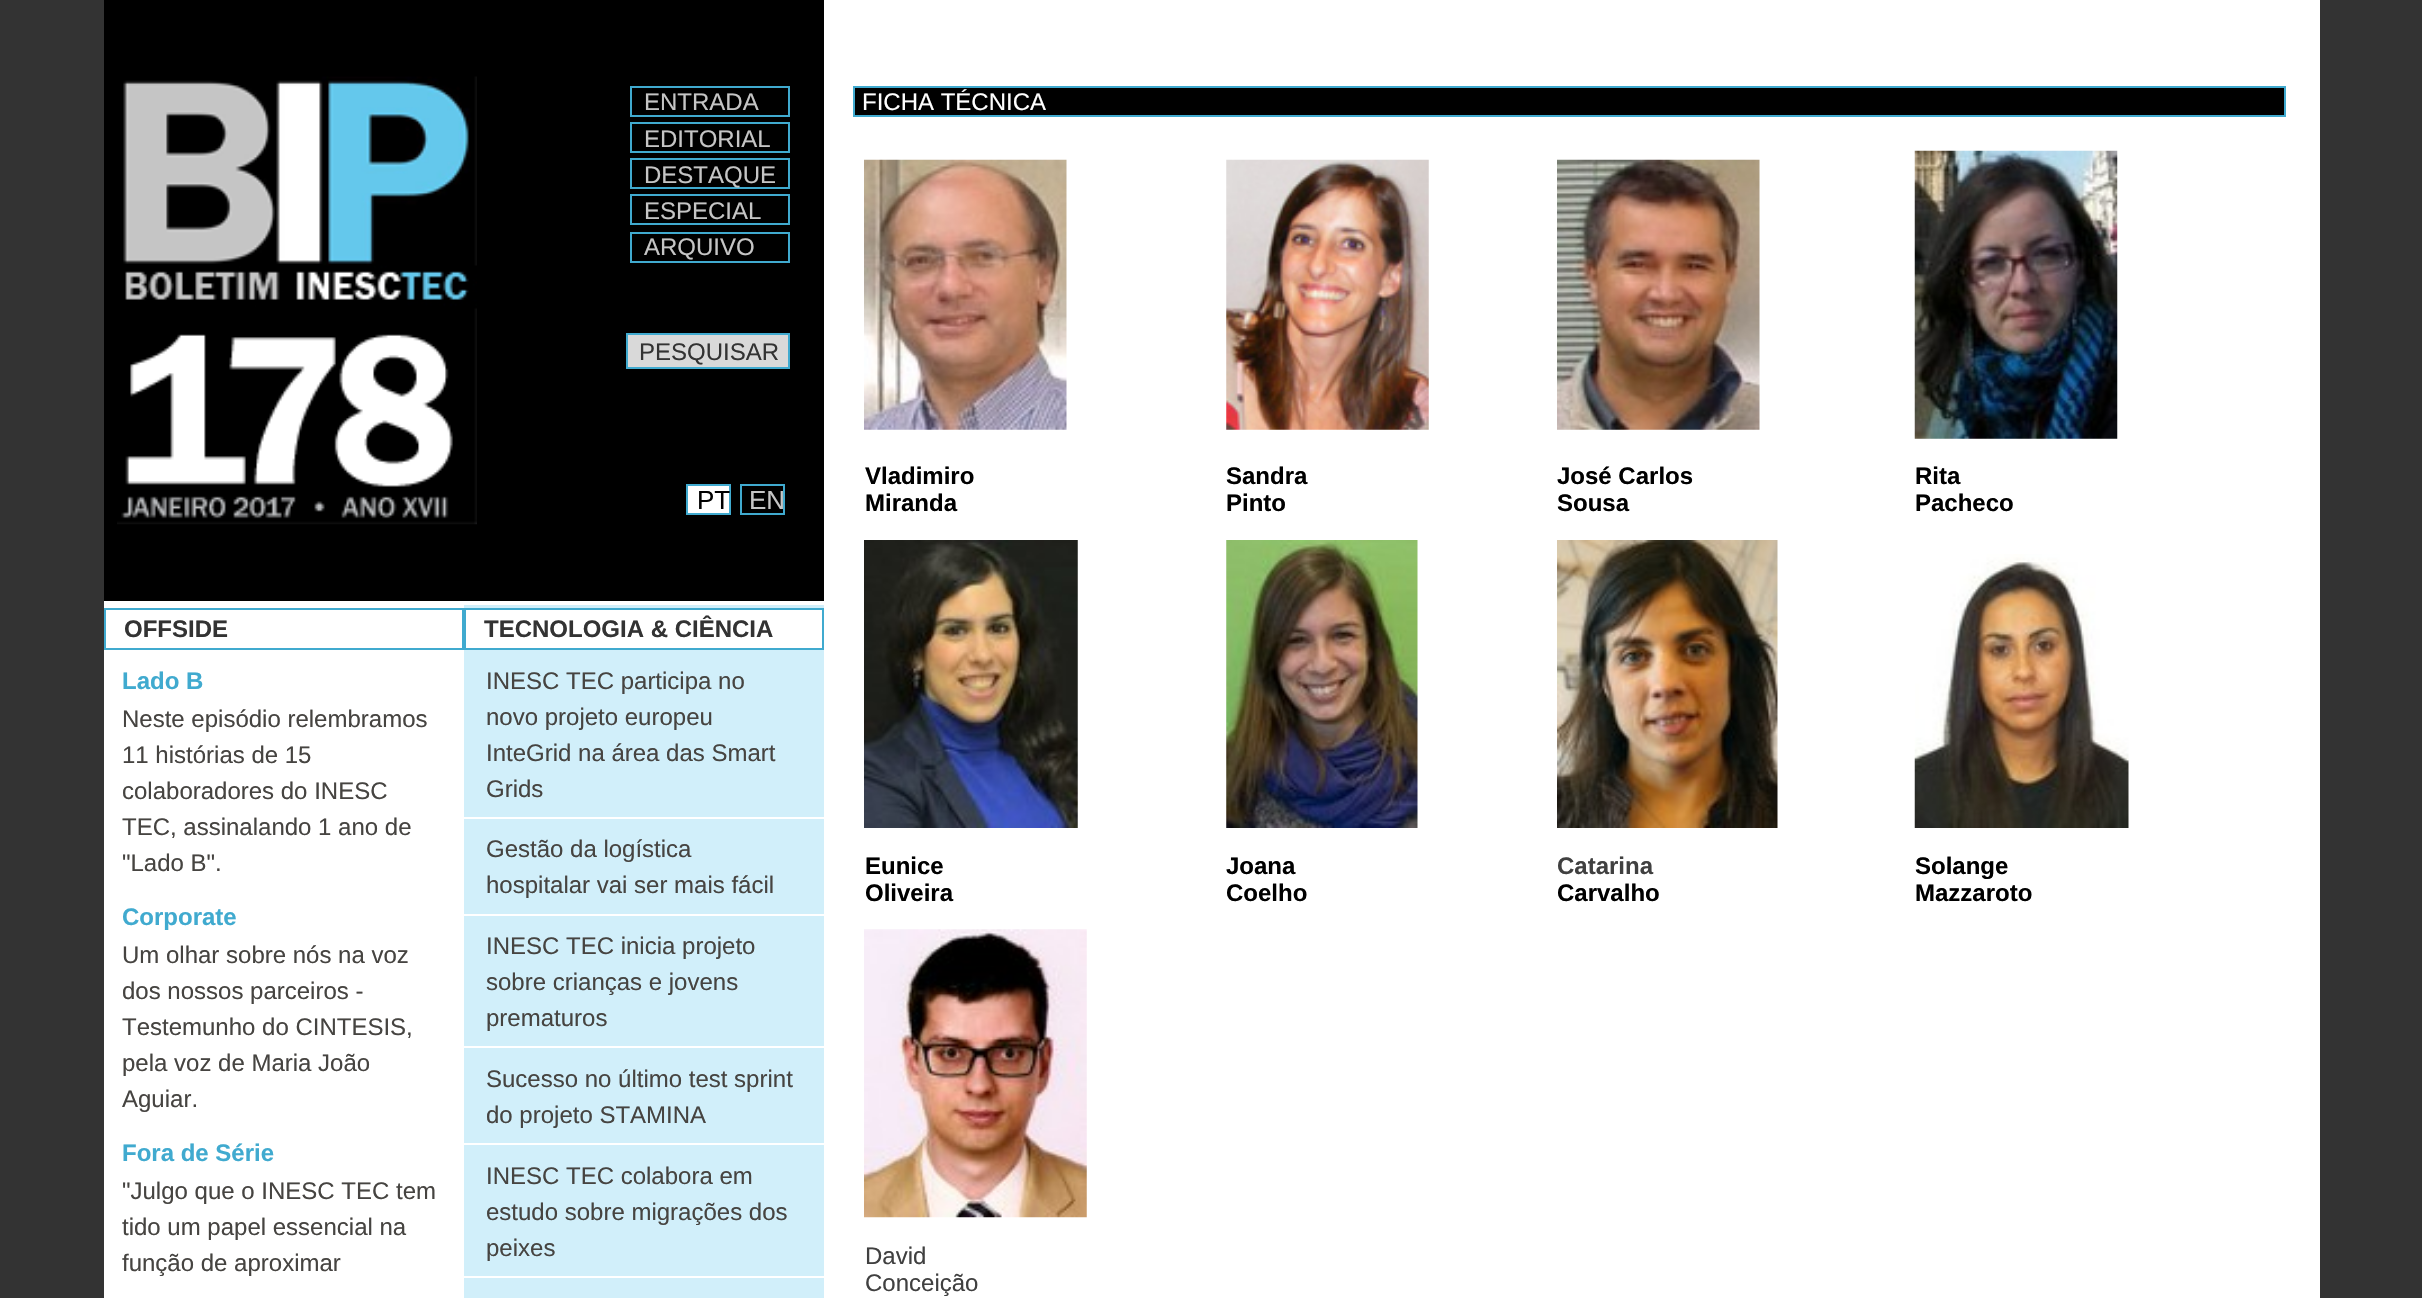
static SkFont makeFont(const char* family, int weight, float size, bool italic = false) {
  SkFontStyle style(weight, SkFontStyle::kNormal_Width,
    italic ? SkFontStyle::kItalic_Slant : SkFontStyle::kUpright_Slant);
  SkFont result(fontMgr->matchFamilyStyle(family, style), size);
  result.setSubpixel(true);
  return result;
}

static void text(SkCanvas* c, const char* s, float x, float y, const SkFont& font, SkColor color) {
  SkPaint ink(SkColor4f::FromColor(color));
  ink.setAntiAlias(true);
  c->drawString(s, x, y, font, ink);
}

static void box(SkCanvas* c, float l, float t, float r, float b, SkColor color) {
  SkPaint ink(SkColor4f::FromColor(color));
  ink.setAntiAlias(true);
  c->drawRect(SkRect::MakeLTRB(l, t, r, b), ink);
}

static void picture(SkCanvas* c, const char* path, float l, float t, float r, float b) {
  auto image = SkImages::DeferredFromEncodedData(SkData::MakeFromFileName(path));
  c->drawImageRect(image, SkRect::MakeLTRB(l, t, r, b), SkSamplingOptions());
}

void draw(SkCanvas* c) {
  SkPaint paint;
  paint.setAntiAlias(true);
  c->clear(0xff333333);
  box(c, 104, 0, 2320, 1298, 0xffffffff);
  box(c, 104, 0, 824, 601, 0xff000000);
  picture(c, "img_01.png", 117, 76, 477, 525);
  paint.setStyle(SkPaint::kStroke_Style);
  paint.setStrokeWidth(2);
  paint.setColor(0xff40aacf);
  c->drawRect(SkRect::MakeLTRB(631, 87, 789, 116), paint);
  SkFont face1 = makeFont("Liberation Sans", 400, 24);
  text(c, "ENTRADA", 644, 110, face1, 0xffc5c5c5);
  c->drawRect(SkRect::MakeLTRB(631, 123, 789, 152), paint);
  text(c, "EDITORIAL", 644, 147, face1, 0xffc5c5c5);
  c->drawRect(SkRect::MakeLTRB(631, 159, 789, 188), paint);
  text(c, "DESTAQUE", 644, 183, face1, 0xffc5c5c5);
  c->drawRect(SkRect::MakeLTRB(631, 195, 789, 224), paint);
  text(c, "ESPECIAL", 644, 219, face1, 0xffc5c5c5);
  c->drawRect(SkRect::MakeLTRB(631, 233, 789, 262), paint);
  text(c, "ARQUIVO", 644, 255, face1, 0xffc5c5c5);
  paint.setStyle(SkPaint::kFill_Style);
  paint.setColor(0xffd9d9d9);
  c->drawRect(SkRect::MakeLTRB(627, 334, 789, 368), paint);
  paint.setStyle(SkPaint::kStroke_Style);
  paint.setColor(0xff40aacf);
  c->drawRect(SkRect::MakeLTRB(627, 334, 789, 368), paint);
  text(c, "PESQUISAR", 639, 360, face1, 0xff333333);
  paint.setStyle(SkPaint::kFill_Style);
  paint.setColor(0xffffffff);
  c->drawRect(SkRect::MakeLTRB(687, 485, 730, 514), paint);
  paint.setStyle(SkPaint::kStroke_Style);
  paint.setColor(0xff40aacf);
  c->drawRect(SkRect::MakeLTRB(687, 485, 730, 514), paint);
  SkFont face2 = makeFont("Liberation Sans", 400, 26);
  text(c, "PT", 697, 509, face2, 0xff000000);
  c->drawRect(SkRect::MakeLTRB(741, 485, 784, 514), paint);
  text(c, "EN", 749, 509, face2, 0xffc5c5c5);
  c->drawRect(SkRect::MakeLTRB(105, 609, 463, 649), paint);
  SkFont face3 = makeFont("Liberation Sans", 700, 24);
  text(c, "OFFSIDE", 124, 637, face3, 0xff333333);
  text(c, "Lado B", 122, 689, face3, 0xff40aacf);
  text(c, "Neste episódio relembramos", 122, 727, face1, 0xff464441);
  text(c, "11 histórias de 15", 122, 763, face1, 0xff464441);
  text(c, "colaboradores do INESC", 122, 799, face1, 0xff464441);
  text(c, "TEC, assinalando 1 ano de", 122, 835, face1, 0xff464441);
  text(c, "\"Lado B\".", 122, 871, face1, 0xff464441);
  text(c, "Corporate", 122, 925, face3, 0xff40aacf);
  text(c, "Um olhar sobre nós na voz", 122, 963, face1, 0xff464441);
  text(c, "dos nossos parceiros -", 122, 999, face1, 0xff464441);
  text(c, "Testemunho do CINTESIS,", 122, 1035, face1, 0xff464441);
  text(c, "pela voz de Maria João", 122, 1071, face1, 0xff464441);
  text(c, "Aguiar.", 122, 1107, face1, 0xff464441);
  text(c, "Fora de Série", 122, 1161, face3, 0xff40aacf);
  text(c, "\"Julgo que o INESC TEC tem", 122, 1199, face1, 0xff464441);
  text(c, "tido um papel essencial na", 122, 1235, face1, 0xff464441);
  text(c, "função de aproximar", 122, 1271, face1, 0xff464441);
  box(c, 464, 605, 824, 1298, 0xffd1effa);
  paint.setStyle(SkPaint::kFill_Style);
  paint.setColor(0xffffffff);
  c->drawRect(SkRect::MakeLTRB(465, 609, 823, 649), paint);
  paint.setStyle(SkPaint::kStroke_Style);
  paint.setColor(0xff40aacf);
  c->drawRect(SkRect::MakeLTRB(465, 609, 823, 649), paint);
  text(c, "TECNOLOGIA & CIÊNCIA", 484, 637, face3, 0xff333333);
  box(c, 464, 817, 824, 819, 0xffffffff);
  text(c, "INESC TEC participa no", 486, 689, face1, 0xff464441);
  text(c, "novo projeto europeu", 486, 725, face1, 0xff464441);
  text(c, "InteGrid na área das Smart", 486, 761, face1, 0xff464441);
  text(c, "Grids", 486, 797, face1, 0xff464441);
  box(c, 464, 914, 824, 916, 0xffffffff);
  text(c, "Gestão da logística", 486, 857, face1, 0xff464441);
  text(c, "hospitalar vai ser mais fácil", 486, 893, face1, 0xff464441);
  box(c, 464, 1046, 824, 1048, 0xffffffff);
  text(c, "INESC TEC inicia projeto", 486, 954, face1, 0xff464441);
  text(c, "sobre crianças e jovens", 486, 990, face1, 0xff464441);
  text(c, "prematuros", 486, 1026, face1, 0xff464441);
  box(c, 464, 1143, 824, 1145, 0xffffffff);
  text(c, "Sucesso no último test sprint", 486, 1087, face1, 0xff464441);
  text(c, "do projeto STAMINA", 486, 1123, face1, 0xff464441);
  box(c, 464, 1276, 824, 1278, 0xffffffff);
  text(c, "INESC TEC colabora em", 486, 1184, face1, 0xff464441);
  text(c, "estudo sobre migrações dos", 486, 1220, face1, 0xff464441);
  text(c, "peixes", 486, 1256, face1, 0xff464441);
  paint.setStyle(SkPaint::kFill_Style);
  paint.setColor(0xff000000);
  c->drawRect(SkRect::MakeLTRB(854, 87, 2285, 116), paint);
  paint.setStyle(SkPaint::kStroke_Style);
  paint.setColor(0xff40aacf);
  c->drawRect(SkRect::MakeLTRB(854, 87, 2285, 116), paint);
  text(c, "FICHA TÉCNICA", 862, 110, face1, 0xffffffff);
  picture(c, "img_02.png", 864, 159, 1067, 430);
  picture(c, "img_03.png", 1226, 159, 1429, 430);
  picture(c, "img_04.png", 1557, 159, 1760, 430);
  picture(c, "img_05.png", 1914, 150, 2118, 439);
  text(c, "Vladimiro", 865, 484, face3, 0xff000000);
  text(c, "Miranda", 865, 511, face3, 0xff000000);
  text(c, "Sandra", 1226, 484, face3, 0xff000000);
  text(c, "Pinto", 1226, 511, face3, 0xff000000);
  text(c, "José Carlos", 1557, 484, face3, 0xff000000);
  text(c, "Sousa", 1557, 511, face3, 0xff000000);
  text(c, "Rita", 1915, 484, face3, 0xff000000);
  text(c, "Pacheco", 1915, 511, face3, 0xff000000);
  picture(c, "img_06.png", 864, 540, 1078, 828);
  picture(c, "img_07.png", 1226, 540, 1418, 828);
  picture(c, "img_08.png", 1557, 540, 1778, 828);
  picture(c, "img_09.png", 1914, 554, 2129, 828);
  text(c, "Eunice", 865, 874, face3, 0xff000000);
  text(c, "Oliveira", 865, 901, face3, 0xff000000);
  text(c, "Joana", 1226, 874, face3, 0xff000000);
  text(c, "Coelho", 1226, 901, face3, 0xff000000);
  text(c, "Catarina", 1557, 874, face3, 0xff404040);
  text(c, "Carvalho", 1557, 901, face3, 0xff000000);
  text(c, "Solange", 1915, 874, face3, 0xff000000);
  text(c, "Mazzaroto", 1915, 901, face3, 0xff000000);
  picture(c, "img_10.png", 864, 929, 1087, 1218);
  text(c, "David", 865, 1264, face1, 0xff404040);
  text(c, "Conceição", 865, 1291, face1, 0xff404040);
}
